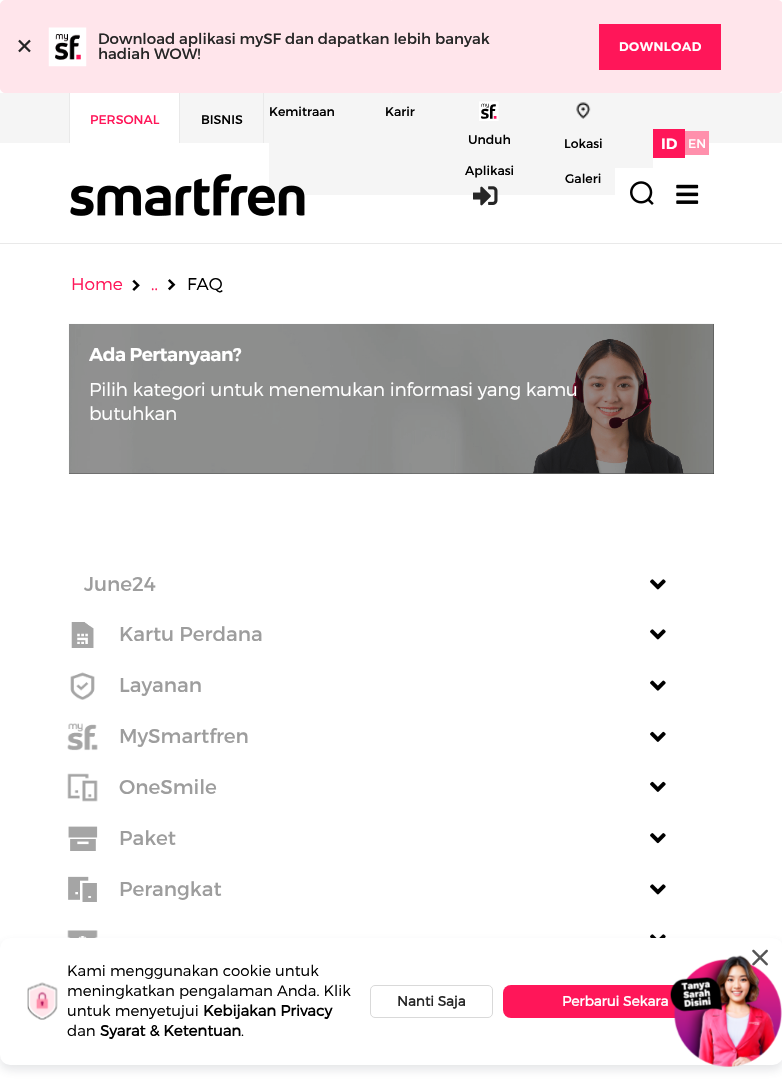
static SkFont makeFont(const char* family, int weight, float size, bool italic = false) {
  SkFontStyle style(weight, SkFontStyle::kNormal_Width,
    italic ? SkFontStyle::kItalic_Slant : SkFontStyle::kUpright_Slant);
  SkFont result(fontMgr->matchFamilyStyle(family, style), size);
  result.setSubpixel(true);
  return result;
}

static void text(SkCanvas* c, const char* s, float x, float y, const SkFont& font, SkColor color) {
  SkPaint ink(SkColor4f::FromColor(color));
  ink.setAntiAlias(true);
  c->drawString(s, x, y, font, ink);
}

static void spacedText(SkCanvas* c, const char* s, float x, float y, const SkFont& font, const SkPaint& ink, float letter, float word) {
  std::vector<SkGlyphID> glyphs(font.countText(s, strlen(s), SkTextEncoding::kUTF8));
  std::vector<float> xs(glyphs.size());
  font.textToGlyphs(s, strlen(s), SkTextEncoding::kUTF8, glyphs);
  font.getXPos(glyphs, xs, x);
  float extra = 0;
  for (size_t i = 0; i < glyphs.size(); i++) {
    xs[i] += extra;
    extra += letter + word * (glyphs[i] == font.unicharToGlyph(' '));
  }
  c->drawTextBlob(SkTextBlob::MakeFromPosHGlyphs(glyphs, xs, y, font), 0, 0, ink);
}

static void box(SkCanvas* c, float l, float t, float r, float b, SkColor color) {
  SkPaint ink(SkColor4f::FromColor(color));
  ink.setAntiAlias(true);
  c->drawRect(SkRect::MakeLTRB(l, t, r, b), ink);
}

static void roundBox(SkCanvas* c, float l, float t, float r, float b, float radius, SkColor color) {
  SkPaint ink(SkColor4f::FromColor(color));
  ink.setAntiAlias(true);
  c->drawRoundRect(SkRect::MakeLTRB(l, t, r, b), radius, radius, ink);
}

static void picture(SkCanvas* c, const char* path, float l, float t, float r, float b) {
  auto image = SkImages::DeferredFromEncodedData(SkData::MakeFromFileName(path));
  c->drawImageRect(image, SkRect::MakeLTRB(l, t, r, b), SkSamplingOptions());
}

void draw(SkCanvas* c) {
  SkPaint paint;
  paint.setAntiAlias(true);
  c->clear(0xffffffff);
  paint.setColor(0xffffe5eb);
  c->drawRoundRect(SkRect::MakeLTRB(0.5f, 0.5f, 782.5f, 92.5f), 4.5f, 4.5f, paint);
  paint.setStyle(SkPaint::kStroke_Style);
  paint.setStrokeWidth(1);
  c->drawRoundRect(SkRect::MakeLTRB(0.5f, 0.5f, 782.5f, 92.5f), 4.5f, 4.5f, paint);
  SkFont face1 = makeFont("Liberation Serif", 700, 30);
  text(c, "×", 16, 56, face1, 0xff262626);
  picture(c, "img_01.png", 48, 27, 87, 67);
  SkFont face2 = makeFont("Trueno", 400, 15);
  text(c, "Download aplikasi mySF dan dapatkan lebih banyak", 98, 44, face2, 0xff262626);
  text(c, "hadiah WOW!", 98, 59, face2, 0xff262626);
  box(c, 599, 24, 721, 70, 0xffff1659);
  SkFont face3 = makeFont("Trueno", 600, 12.5f);
  paint.setStyle(SkPaint::kFill_Style);
  paint.setColor(0xffffffff);
  spacedText(c, "DOWNLOAD", 619, 51, face3, paint, 0.5f, 0);
  box(c, 0, 93, 782, 143, 0xfff5f5f5);
  box(c, 70, 93, 179, 143, 0xffffffff);
  box(c, 179, 93, 180, 143, 0xffe9e9e9);
  box(c, 69, 93, 70, 143, 0xffe9e9e9);
  SkFont face4 = makeFont("Trueno", 400, 12.5f);
  text(c, "PERSONAL", 90, 124, face4, 0xffff1659);
  box(c, 263, 93, 264, 143, 0xffe9e9e9);
  text(c, "BISNIS", 201, 124, face4, 0xff000000);
  box(c, 269, 143, 653, 195, 0xfff5f5f5);
  text(c, "Kemitraan", 269, 116, face4, 0xff000000);
  text(c, "Karir", 385, 116, face4, 0xff000000);
  picture(c, "img_02.png", 479, 101, 499, 121);
  text(c, "Unduh", 468, 144, face4, 0xff000000);
  text(c, "Aplikasi", 465, 175, face4, 0xff000000);
  picture(c, "img_03.png", 576, 102, 591, 119);
  text(c, "Lokasi", 564, 148, face4, 0xff000000);
  text(c, "Galeri", 565, 183, face4, 0xff000000);
  box(c, 653, 129, 685, 158, 0xffff1659);
  SkFont face5 = makeFont("Trueno", 600, 15);
  text(c, "ID", 661, 149, face5, 0xffffffff);
  box(c, 685, 131, 709, 155, 0xffff90ac);
  text(c, "EN", 688, 148, face4, 0xffffffff);
  box(c, 0, 243, 782, 244, 0xffe9e9e9);
  picture(c, "img_04.png", 70, 174, 305, 216);
  picture(c, "img_05.png", 473, 186, 498, 206);
  box(c, 615, 168, 653, 195, 0xffffffff);
  picture(c, "img_06.png", 630, 181, 654, 205);
  picture(c, "img_07.png", 676, 184, 699, 204);
  SkFont face6 = makeFont("Trueno", 300, 17);
  text(c, "Home", 71, 290, face6, 0xffff1659);
  picture(c, "img_08.png", 132, 279, 140, 291);
  text(c, "..", 151, 290, face6, 0xffff1659);
  picture(c, "img_09.png", 168, 279, 176, 291);
  text(c, "FAQ", 187, 290, face6, 0xff000000);
  box(c, 69, 324, 714, 474, 0xff0d0d0d);
  picture(c, "img_10.png", 68, 323, 714, 474);
  SkFont face7 = makeFont("Trueno", 600, 18.65f);
  spacedText(c, "Ada Pertanyaan?", 89, 361, face7, paint, -0.5f, 0);
  SkFont face8 = makeFont("Trueno", 300, 18.65f);
  spacedText(c, "Pilih kategori untuk menemukan informasi yang kamu", 89, 396, face8, paint, -0.25f, 0);
  spacedText(c, "butuhkan", 89, 420, face8, paint, -0.25f, 0);
  SkFont face9 = makeFont("Trueno", 400, 20);
  text(c, "June24", 84, 591, face9, 0xff9d9d9d);
  picture(c, "img_11.png", 650, 579, 666, 590);
  picture(c, "img_12.png", 71, 622, 94, 648);
  text(c, "Kartu Perdana", 119, 641, face9, 0xff9d9d9d);
  picture(c, "img_11.png", 650, 629, 666, 640);
  picture(c, "img_13.png", 70, 672, 95, 700);
  text(c, "Layanan", 119, 692, face9, 0xff9d9d9d);
  picture(c, "img_14.png", 650, 680, 666, 691);
  picture(c, "img_15.png", 67, 723, 98, 751);
  text(c, "MySmartfren", 119, 743, face9, 0xff9d9d9d);
  picture(c, "img_16.png", 650, 731, 666, 742);
  picture(c, "img_17.png", 67, 773, 98, 802);
  text(c, "OneSmile", 119, 794, face9, 0xff9d9d9d);
  picture(c, "img_16.png", 650, 781, 666, 792);
  picture(c, "img_18.png", 68, 826, 98, 851);
  text(c, "Paket", 119, 845, face9, 0xff9d9d9d);
  picture(c, "img_19.png", 650, 833, 666, 844);
  picture(c, "img_20.png", 68, 876, 97, 902);
  text(c, "Perangkat", 119, 896, face9, 0xff9d9d9d);
  picture(c, "img_11.png", 650, 884, 666, 895);
  picture(c, "img_21.png", 67, 930, 98, 938);
  picture(c, "img_22.png", 650, 934, 666, 938);
  paint.setColor(0x29606170);
  paint.setMaskFilter(SkMaskFilter::MakeBlur(kNormal_SkBlurStyle, 5));
  c->drawRoundRect(SkRect::MakeLTRB(0, 943, 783, 1070), 10, 10, paint);
  paint.setMaskFilter(nullptr);
  roundBox(c, 0, 938, 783, 1065, 10, 0xffffffff);
  picture(c, "img_23.png", 752, 949, 768, 966);
  picture(c, "img_24.png", 27, 982, 58, 1020);
  SkFont face10 = makeFont("Trueno", 300, 15);
  text(c, "Kami menggunakan cookie untuk", 67, 976, face10, 0xff000000);
  text(c, "meningkatkan pengalaman Anda. Klik", 67, 996, face10, 0xff000000);
  text(c, "untuk menyetujui", 67, 1016, face10, 0xff000000);
  SkFont face11 = makeFont("Trueno", 700, 15);
  text(c, "Kebijakan Privacy", 203, 1016, face11, 0xff000000);
  text(c, "dan", 67, 1036, face10, 0xff000000);
  text(c, "Syarat & Ketentuan", 100, 1036, face11, 0xff000000);
  text(c, ".", 241, 1036, face10, 0xff000000);
  paint.setStyle(SkPaint::kStroke_Style);
  paint.setColor(0xffd9d9d9);
  c->drawRoundRect(SkRect::MakeLTRB(370.5f, 985.5f, 492.5f, 1017.5f), 4.5f, 4.5f, paint);
  SkFont face12 = makeFont("Trueno", 700, 13.75f);
  text(c, "Nanti Saja", 397, 1006, face12, 0xff262626);
  roundBox(c, 503, 985, 745, 1018, 8, 0xffff1659);
  text(c, "Perbarui Sekara", 562, 1006, face12, 0xffffffff);
  picture(c, "img_25.png", 670, 955, 782, 1067);
}
